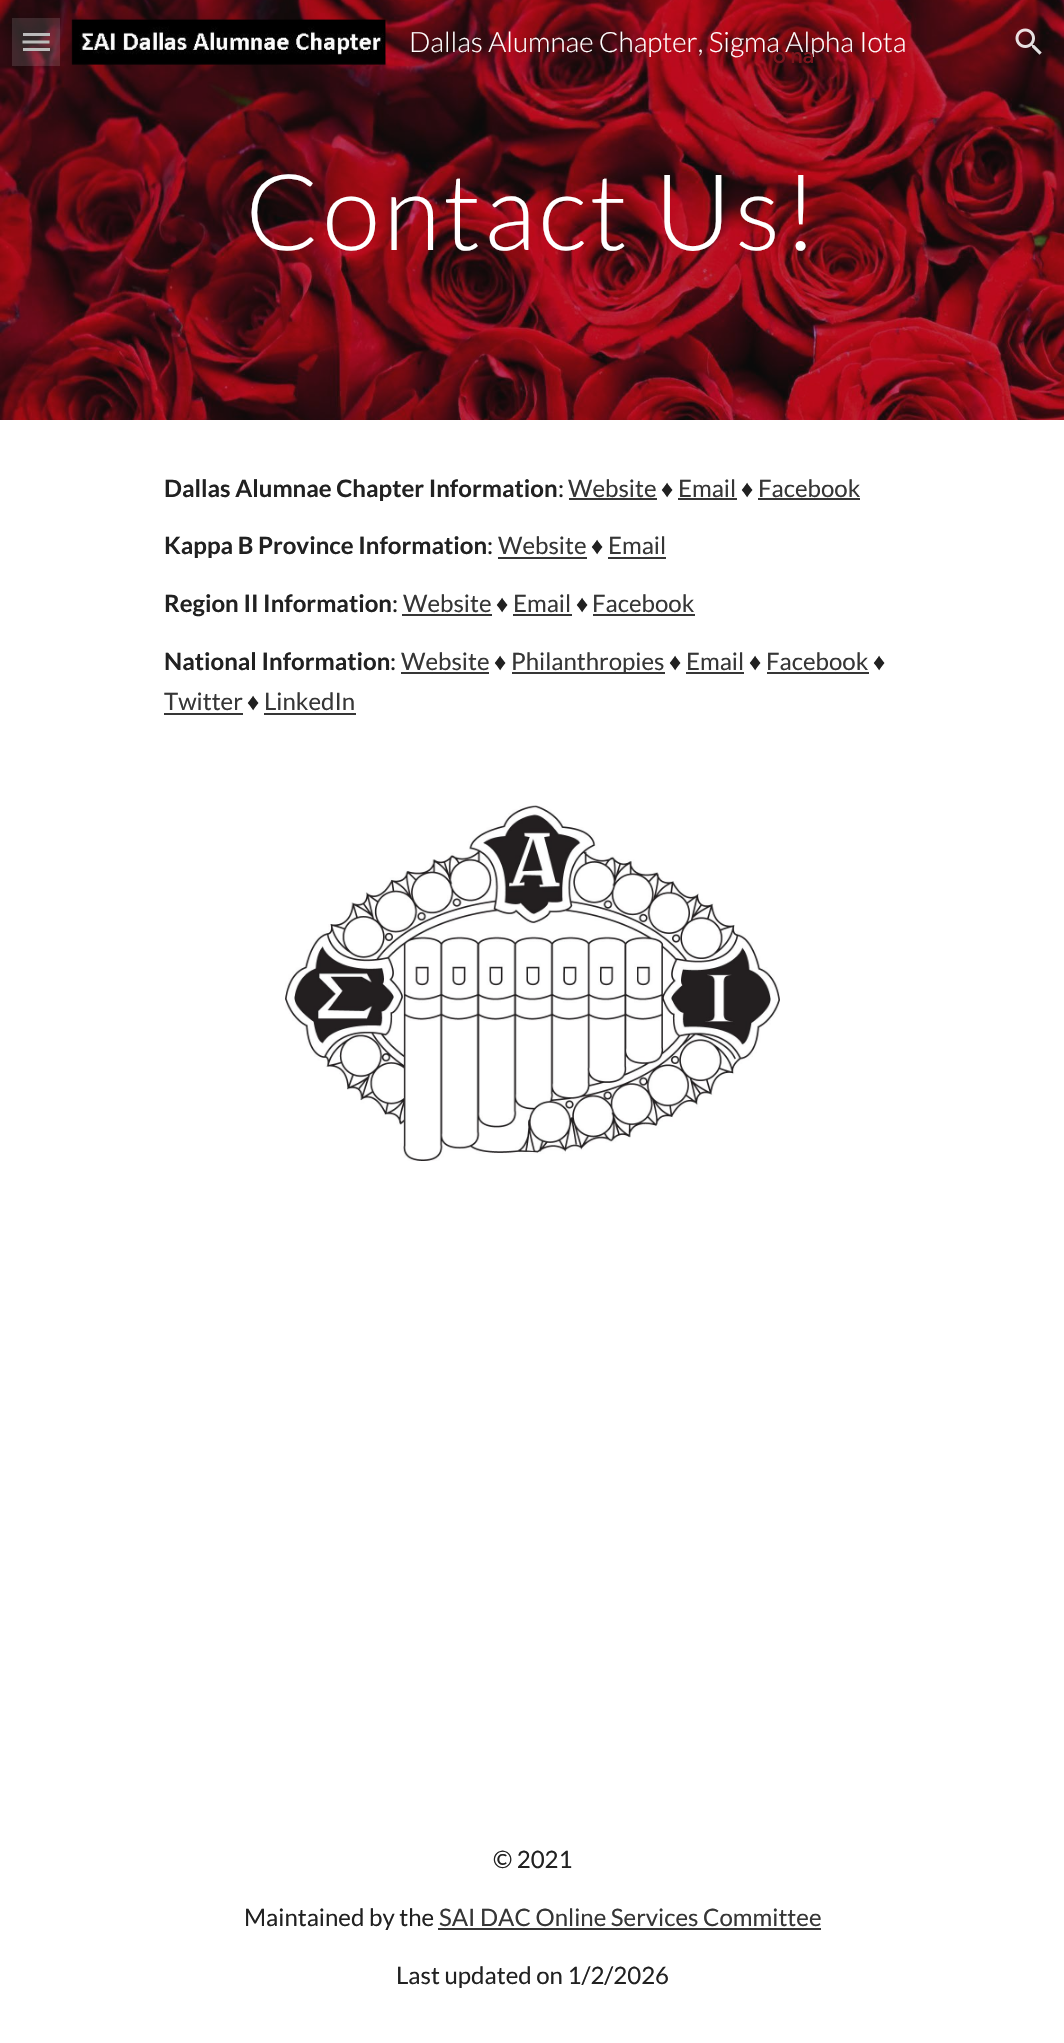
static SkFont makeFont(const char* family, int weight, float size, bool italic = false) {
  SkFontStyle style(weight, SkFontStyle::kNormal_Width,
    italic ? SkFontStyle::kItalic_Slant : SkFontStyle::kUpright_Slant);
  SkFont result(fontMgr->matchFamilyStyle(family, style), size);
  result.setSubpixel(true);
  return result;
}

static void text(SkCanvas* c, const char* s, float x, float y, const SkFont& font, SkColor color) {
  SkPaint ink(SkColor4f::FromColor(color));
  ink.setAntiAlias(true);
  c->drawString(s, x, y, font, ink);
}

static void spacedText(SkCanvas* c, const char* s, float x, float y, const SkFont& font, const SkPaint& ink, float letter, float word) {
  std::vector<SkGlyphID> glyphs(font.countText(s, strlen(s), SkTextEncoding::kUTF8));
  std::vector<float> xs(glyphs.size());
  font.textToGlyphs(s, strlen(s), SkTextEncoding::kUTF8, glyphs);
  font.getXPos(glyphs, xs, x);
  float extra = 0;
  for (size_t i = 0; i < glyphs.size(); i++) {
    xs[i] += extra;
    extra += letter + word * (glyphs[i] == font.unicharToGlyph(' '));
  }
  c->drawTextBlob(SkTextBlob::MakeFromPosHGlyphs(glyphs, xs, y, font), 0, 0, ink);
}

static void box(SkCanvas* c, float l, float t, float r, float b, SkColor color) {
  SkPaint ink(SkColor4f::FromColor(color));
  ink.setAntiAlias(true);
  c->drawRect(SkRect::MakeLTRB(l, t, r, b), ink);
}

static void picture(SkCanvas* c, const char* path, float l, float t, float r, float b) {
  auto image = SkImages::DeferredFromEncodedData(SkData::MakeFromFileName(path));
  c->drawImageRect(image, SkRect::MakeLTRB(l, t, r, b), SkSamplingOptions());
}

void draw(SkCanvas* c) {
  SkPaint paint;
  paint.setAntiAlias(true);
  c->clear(0xffffffff);
  picture(c, "img_03.png", 0, 0, 1064, 420);
  box(c, 23, 33, 50, 36, 0xffb2b2b2);
  paint.setStyle(SkPaint::kStroke_Style);
  paint.setStrokeWidth(3);
  paint.setColor(0xffb2b2b2);
  c->drawPath(SkPathBuilder().moveTo(22.5f, 42).lineTo(49.5f, 42).detach(), paint);
  box(c, 23, 48, 50, 51, 0xffb2b2b2);
  box(c, 12, 18, 60, 66, 0x1fffffff);
  picture(c, "img_01.png", 71, 18, 386, 65);
  SkFont face1 = makeFont("Lato", 300, 28);
  text(c, "Dallas Alumnae Chapter, Sigma Alpha Iota", 409, 52, face1, 0xffffffff);
  picture(c, "img_02.png", 1015, 28, 1042, 55);
  SkFont face2 = makeFont("Lato", 300, 106);
  paint.setStyle(SkPaint::kFill_Style);
  paint.setColor(0xffffffff);
  spacedText(c, "Contact Us!", 245, 250, face2, paint, 3, 0);
  SkFont face3 = makeFont("Lato", 700, 24);
  text(c, "Dallas Alumnae Chapter Information", 164, 497, face3, 0xff212121);
  SkFont face4 = makeFont("Lato", 400, 24);
  text(c, ":", 558, 497, face4, 0xff212121);
  text(c, "Website", 568, 497, face4, 0xff363636);
  box(c, 569, 498, 657, 500, 0xff363636);
  SkFont face5 = makeFont("Liberation Sans", 400, 24);
  text(c, "♦", 661, 497, face5, 0xff212121);
  text(c, "Email", 678, 497, face4, 0xff363636);
  box(c, 678, 498, 737, 500, 0xff363636);
  text(c, "♦", 741, 497, face5, 0xff212121);
  text(c, "Facebook", 758, 497, face4, 0xff363636);
  box(c, 758, 498, 860, 500, 0xff363636);
  text(c, "Kappa B Province Information", 164, 554, face3, 0xff212121);
  text(c, ":", 487, 554, face4, 0xff212121);
  text(c, "Website", 498, 554, face4, 0xff363636);
  box(c, 498, 557, 587, 559, 0xff363636);
  text(c, "♦", 591, 554, face5, 0xff212121);
  text(c, "Email", 608, 554, face4, 0xff363636);
  box(c, 608, 557, 666, 559, 0xff363636);
  text(c, "Region II Information", 164, 612, face3, 0xff212121);
  text(c, ":", 392, 612, face4, 0xff212121);
  text(c, "Website", 403, 612, face4, 0xff363636);
  box(c, 402, 614, 492, 616, 0xff363636);
  text(c, "♦", 496, 612, face5, 0xff212121);
  text(c, "Email", 513, 612, face4, 0xff363636);
  box(c, 513, 614, 572, 616, 0xff363636);
  text(c, "♦", 576, 612, face5, 0xff212121);
  text(c, "Facebook", 592, 612, face4, 0xff363636);
  box(c, 593, 614, 695, 616, 0xff363636);
  text(c, "National Information", 164, 670, face3, 0xff212121);
  text(c, ":", 390, 670, face4, 0xff212121);
  text(c, "Website", 401, 670, face4, 0xff363636);
  box(c, 401, 672, 489, 674, 0xff363636);
  text(c, "♦", 494, 670, face5, 0xff212121);
  box(c, 512, 672, 665, 674, 0xff363636);
  text(c, "Philanthropies", 511, 670, face4, 0xff363636);
  text(c, "♦", 669, 670, face5, 0xff212121);
  text(c, "Email", 686, 670, face4, 0xff363636);
  box(c, 686, 672, 744, 674, 0xff363636);
  text(c, "♦", 749, 670, face5, 0xff212121);
  text(c, "Facebook", 766, 670, face4, 0xff363636);
  box(c, 767, 672, 869, 674, 0xff363636);
  text(c, "♦", 873, 670, face5, 0xff212121);
  text(c, "Twitter", 164, 710, face4, 0xff363636);
  box(c, 164, 713, 243, 715, 0xff363636);
  text(c, "♦", 247, 710, face5, 0xff212121);
  text(c, "LinkedIn", 264, 710, face4, 0xff363636);
  box(c, 264, 713, 356, 715, 0xff363636);
  picture(c, "img_04.png", 285, 805, 780, 1161);
  text(c, "© 2021", 493, 1868, face4, 0xff212121);
  text(c, "Maintained by the", 244, 1926, face4, 0xff212121);
  text(c, "SAI DAC Online Services Committee", 439, 1926, face4, 0xff363636);
  box(c, 438, 1928, 821, 1930, 0xff363636);
  text(c, "Last updated on 1/2/2026", 396, 1984, face4, 0xff212121);
  SkFont face6 = makeFont("Google Sans", 500, 21);
  text(c, "o na", 773, 63, face6, 0xff7b141d);
}
